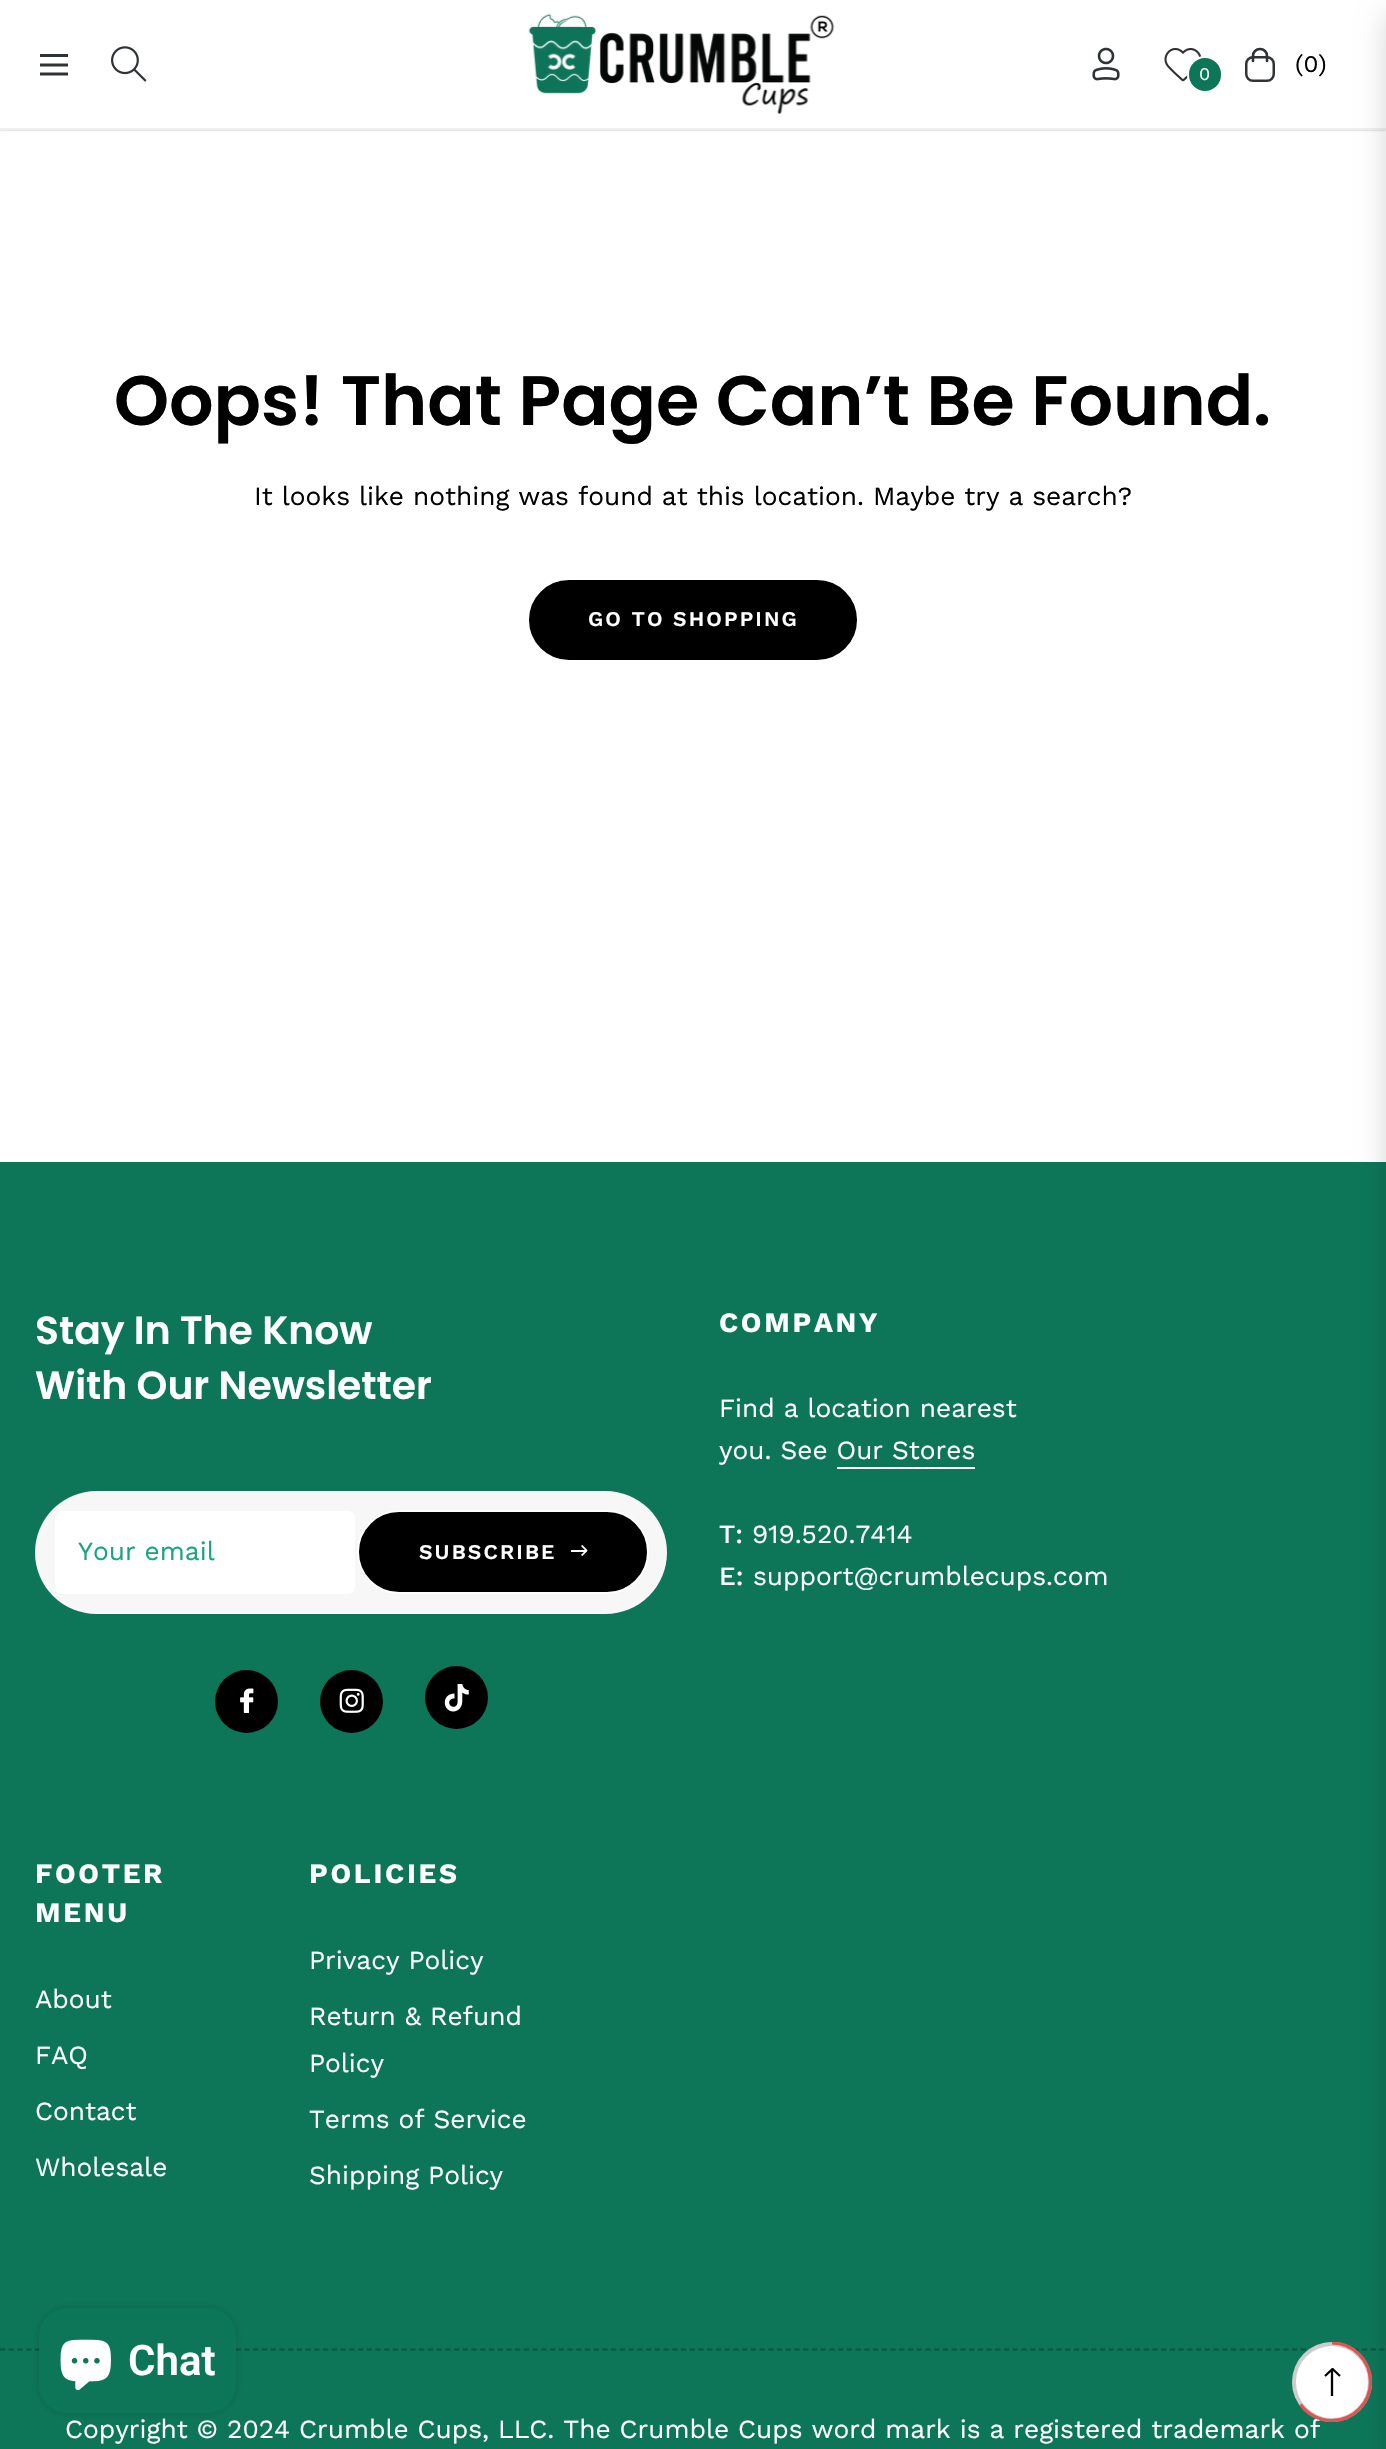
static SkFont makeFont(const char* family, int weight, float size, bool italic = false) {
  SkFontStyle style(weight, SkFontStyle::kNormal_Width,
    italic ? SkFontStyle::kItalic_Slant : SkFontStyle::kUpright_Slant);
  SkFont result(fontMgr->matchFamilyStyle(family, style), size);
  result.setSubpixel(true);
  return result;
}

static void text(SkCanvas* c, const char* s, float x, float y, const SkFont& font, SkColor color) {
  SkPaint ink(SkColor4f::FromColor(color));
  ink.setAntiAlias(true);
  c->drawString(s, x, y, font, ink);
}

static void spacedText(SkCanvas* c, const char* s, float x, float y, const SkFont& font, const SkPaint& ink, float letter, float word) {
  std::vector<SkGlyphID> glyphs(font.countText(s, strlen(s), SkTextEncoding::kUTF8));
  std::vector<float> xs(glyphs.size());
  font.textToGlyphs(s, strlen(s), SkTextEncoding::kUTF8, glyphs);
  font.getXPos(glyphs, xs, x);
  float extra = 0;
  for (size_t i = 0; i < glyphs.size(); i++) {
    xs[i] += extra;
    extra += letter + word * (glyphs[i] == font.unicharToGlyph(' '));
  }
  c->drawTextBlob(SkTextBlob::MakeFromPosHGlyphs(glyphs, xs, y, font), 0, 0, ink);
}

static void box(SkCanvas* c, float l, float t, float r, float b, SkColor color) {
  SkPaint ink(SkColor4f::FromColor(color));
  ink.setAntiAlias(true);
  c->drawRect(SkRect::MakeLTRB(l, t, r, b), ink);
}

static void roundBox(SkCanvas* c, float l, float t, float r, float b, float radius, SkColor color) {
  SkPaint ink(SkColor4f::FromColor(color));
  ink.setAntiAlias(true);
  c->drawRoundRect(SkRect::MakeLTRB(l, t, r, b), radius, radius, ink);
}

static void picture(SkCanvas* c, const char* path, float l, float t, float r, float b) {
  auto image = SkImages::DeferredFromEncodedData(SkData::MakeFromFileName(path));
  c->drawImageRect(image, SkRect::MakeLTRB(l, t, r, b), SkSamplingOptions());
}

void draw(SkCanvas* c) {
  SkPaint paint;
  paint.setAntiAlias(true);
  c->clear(0xffffffff);
  paint.setColor(0x4d000000);
  paint.setMaskFilter(SkMaskFilter::MakeBlur(kNormal_SkBlurStyle, 1));
  c->drawRect(SkRect::MakeLTRB(0, 0, 1386, 130), paint);
  paint.setMaskFilter(nullptr);
  box(c, 0, 0, 1386, 128, 0xffffffff);
  box(c, 0, 128, 1386, 130, 0xffefefef);
  paint.setStyle(SkPaint::kStroke_Style);
  paint.setStrokeWidth(3.1f);
  paint.setColor(0xff2f3336);
  c->drawPath(SkPathBuilder().moveTo(40, 55.5f).lineTo(68, 55.5f).moveTo(40, 74).lineTo(68, 74).close().moveTo(40, 65).lineTo(68, 65).close().detach(), paint);
  picture(c, "img_01.png", 111, 46, 147, 82);
  picture(c, "img_02.png", 528, 13, 835, 114);
  picture(c, "img_03.png", 1092, 47, 1120, 81);
  picture(c, "img_04.png", 1164, 48, 1202, 82);
  paint.setStyle(SkPaint::kFill_Style);
  paint.setColor(0xff0d7659);
  c->drawRoundRect(SkRect::MakeLTRB(1188, 57, 1222, 92), 17, 17, paint);
  paint.setStyle(SkPaint::kStroke_Style);
  paint.setStrokeWidth(2);
  paint.setColor(0xffffffff);
  c->drawRoundRect(SkRect::MakeLTRB(1188, 57, 1222, 92), 17, 17, paint);
  SkFont face1 = makeFont("Work Sans", 400, 18);
  text(c, "0", 1199, 80, face1, 0xffffffff);
  paint.setStrokeWidth(2.5f);
  paint.setColor(0xff2f3336);
  c->drawRoundRect(SkRect::MakeLTRB(1246.25f, 57.25f, 1273.75f, 80.75f), 6.75f, 6.75f, paint);
  paint.setStrokeWidth(2.6f);
  paint.setStrokeCap(SkPaint::kRound_Cap);
  c->drawPath(SkPathBuilder().moveTo(1267, 61).lineTo(1267, 56).cubicTo(1267, 52, 1264, 49, 1260, 49).cubicTo(1256, 49, 1253, 52, 1253, 56).lineTo(1253, 61).detach(), paint);
  SkFont face2 = makeFont("Work Sans", 400, 24);
  text(c, "(0)", 1295, 72, face2, 0xff000000);
  box(c, 0, 1162, 1386, 2449, 0xff0d7659);
  paint.setStrokeWidth(1.8f);
  paint.setStrokeCap(SkPaint::kButt_Cap);
  paint.setColor(0xff09533e);
  paint.setPathEffect(SkDashPathEffect::Make({{5.25f, 3.48f}}, 0));
  c->drawPath(SkPathBuilder().moveTo(0, 2349.5f).lineTo(1386, 2349.5f).detach(), paint);
  paint.setPathEffect(nullptr);
  paint.setStyle(SkPaint::kFill_Style);
  paint.setColor(0xffffffff);
  c->drawCircle(1332, 2382, 40, paint);
  SkFont face3 = makeFont("Work Sans", 400, 26.25f);
  text(c, "Copyright © 2024 Crumble Cups, LLC. The Crumble Cups word mark is a registered trademark of", 65, 2438, face3, 0xffffffff);
  paint.setStyle(SkPaint::kStroke_Style);
  paint.setStrokeWidth(4);
  paint.setColor(0x33030303);
  c->drawCircle(1332, 2382, 38, paint);
  c->save();
  c->clipRect(SkRect::MakeLTRB(1292, 2342, 1372, 2422));
  paint.setStrokeWidth(3.2f);
  paint.setColor(0xffe35353);
  c->drawPath(SkPathBuilder().moveTo(1332, 2343).cubicTo(1353, 2343, 1370.5f, 2360.5f, 1370.5f, 2382).cubicTo(1370.5f, 2403, 1353, 2420.5f, 1332, 2420.5f).cubicTo(1319, 2420.5f, 1307.5f, 2414, 1300.5f, 2404.5f).detach(), paint);
  c->restore();
  paint.setStyle(SkPaint::kFill_Style);
  paint.setColor(0x26000000);
  paint.setMaskFilter(SkMaskFilter::MakeBlur(kNormal_SkBlurStyle, 14));
  c->drawRect(SkRect::MakeLTRB(1386, 14, 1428, 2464), paint);
  paint.setMaskFilter(nullptr);
  SkFont face4 = makeFont("Poppins", 600, 70);
  text(c, "Oops! That Page Can’t Be Found.", 114, 425, face4, 0xff000000);
  text(c, "It looks like nothing was found at this location. Maybe try a search?", 254, 505, face3, 0xff000000);
  paint.setColor(0xff000000);
  c->drawRoundRect(SkRect::MakeLTRB(528, 579, 858, 661), 41, 41, paint);
  paint.setStyle(SkPaint::kStroke_Style);
  paint.setStrokeWidth(2);
  paint.setColor(0xffffffff);
  c->drawRoundRect(SkRect::MakeLTRB(528, 579, 858, 661), 41, 41, paint);
  SkFont face5 = makeFont("Work Sans", 600, 21);
  paint.setStyle(SkPaint::kFill_Style);
  spacedText(c, "GO TO SHOPPING", 588, 626, face5, paint, 2.1f, 0);
  SkFont face6 = makeFont("Poppins", 600, 39.25f);
  text(c, "Stay In The Know", 35, 1344, face6, 0xffffffff);
  text(c, "With Our Newsletter", 35, 1399, face6, 0xffffffff);
  roundBox(c, 35, 1491, 667, 1614, 61.5f, 0xfff7f7f7);
  c->drawRoundRect(SkRect::MakeLTRB(54, 1510, 356, 1595), 8, 8, paint);
  paint.setStyle(SkPaint::kStroke_Style);
  paint.setColor(0xfff7f7f7);
  c->drawRoundRect(SkRect::MakeLTRB(54, 1510, 356, 1595), 8, 8, paint);
  text(c, "Your email", 78, 1560, face3, 0xff18a47e);
  paint.setStyle(SkPaint::kFill_Style);
  paint.setColor(0xff000000);
  c->drawRoundRect(SkRect::MakeLTRB(358, 1511, 648, 1593), 41, 41, paint);
  paint.setStyle(SkPaint::kStroke_Style);
  paint.setColor(0xffffffff);
  c->drawRoundRect(SkRect::MakeLTRB(358, 1511, 648, 1593), 41, 41, paint);
  paint.setStyle(SkPaint::kFill_Style);
  spacedText(c, "SUBSCRIBE", 419, 1559, face5, paint, 2.1f, 0);
  picture(c, "img_05.png", 571, 1545, 588, 1556);
  paint.setColor(0xff000000);
  c->drawCircle(246.5f, 1701.5f, 31.5f, paint);
  picture(c, "img_06.png", 240, 1688, 254, 1713);
  c->drawCircle(351.5f, 1701.5f, 31.5f, paint);
  picture(c, "img_07.png", 339, 1688, 364, 1713);
  c->drawCircle(456.5f, 1697.5f, 31.5f, paint);
  picture(c, "img_08.png", 444, 1684, 469, 1712);
  SkFont face7 = makeFont("Work Sans", 700, 28);
  paint.setColor(0xffffffff);
  spacedText(c, "COMPANY", 719, 1332, face7, paint, 2.75f, 0);
  text(c, "Find a location nearest", 719, 1417, face3, 0xffffffff);
  text(c, "you. See Our Stores", 719, 1459, face3, 0xffffffff);
  box(c, 837, 1467, 975, 1469, 0xffffffff);
  SkFont face8 = makeFont("Work Sans", 500, 26.25f);
  text(c, "T:", 719, 1543, face8, 0xffffffff);
  text(c, "919.520.7414", 752, 1543, face3, 0xffffffff);
  text(c, "E:", 719, 1585, face8, 0xffffffff);
  text(c, "support@crumblecups.com", 753, 1585, face3, 0xffffffff);
  spacedText(c, "FOOTER", 35, 1883, face7, paint, 2.75f, 0);
  spacedText(c, "MENU", 35, 1922, face7, paint, 2.75f, 0);
  text(c, "About", 35, 2008, face3, 0xffffffff);
  text(c, "FAQ", 35, 2064, face3, 0xffffffff);
  text(c, "Contact", 35, 2120, face3, 0xffffffff);
  text(c, "Wholesale", 35, 2176, face3, 0xffffffff);
  spacedText(c, "POLICIES", 309, 1883, face7, paint, 2.75f, 0);
  text(c, "Privacy Policy", 309, 1969, face3, 0xffffffff);
  text(c, "Return & Refund", 309, 2025, face3, 0xffffffff);
  text(c, "Policy", 309, 2072, face3, 0xffffffff);
  text(c, "Terms of Service", 309, 2128, face3, 0xffffffff);
  text(c, "Shipping Policy", 309, 2184, face3, 0xffffffff);
  c->save();
  c->clipPath(SkPathBuilder().moveTo(1318, 2396).lineTo(1318, 2368).lineTo(1346, 2368).lineTo(1346, 2396).close().detach(), true);
  paint.setStyle(SkPaint::kStroke_Style);
  paint.setStrokeWidth(2.3f);
  paint.setColor(0xff030303);
  c->drawPath(SkPathBuilder().moveTo(1340, 2376).lineTo(1332.5f, 2369).lineTo(1325, 2376).moveTo(1332, 2369).lineTo(1332, 2396).detach(), paint);
  c->restore();
  paint.setStyle(SkPaint::kFill_Style);
  paint.setColor(0x26000000);
  paint.setMaskFilter(SkMaskFilter::MakeBlur(kNormal_SkBlurStyle, 4.5f));
  c->drawRoundRect(SkRect::MakeLTRB(39, 2308, 236, 2413), 28, 28, paint);
  paint.setMaskFilter(nullptr);
  roundBox(c, 39, 2308, 236, 2413, 28, 0xff0d7659);
  picture(c, "img_09.png", 60, 2339, 111, 2391);
  SkFont face9 = makeFont("Roboto", 600, 42);
  text(c, "Chat", 128, 2375, face9, 0xffffffff);
}
